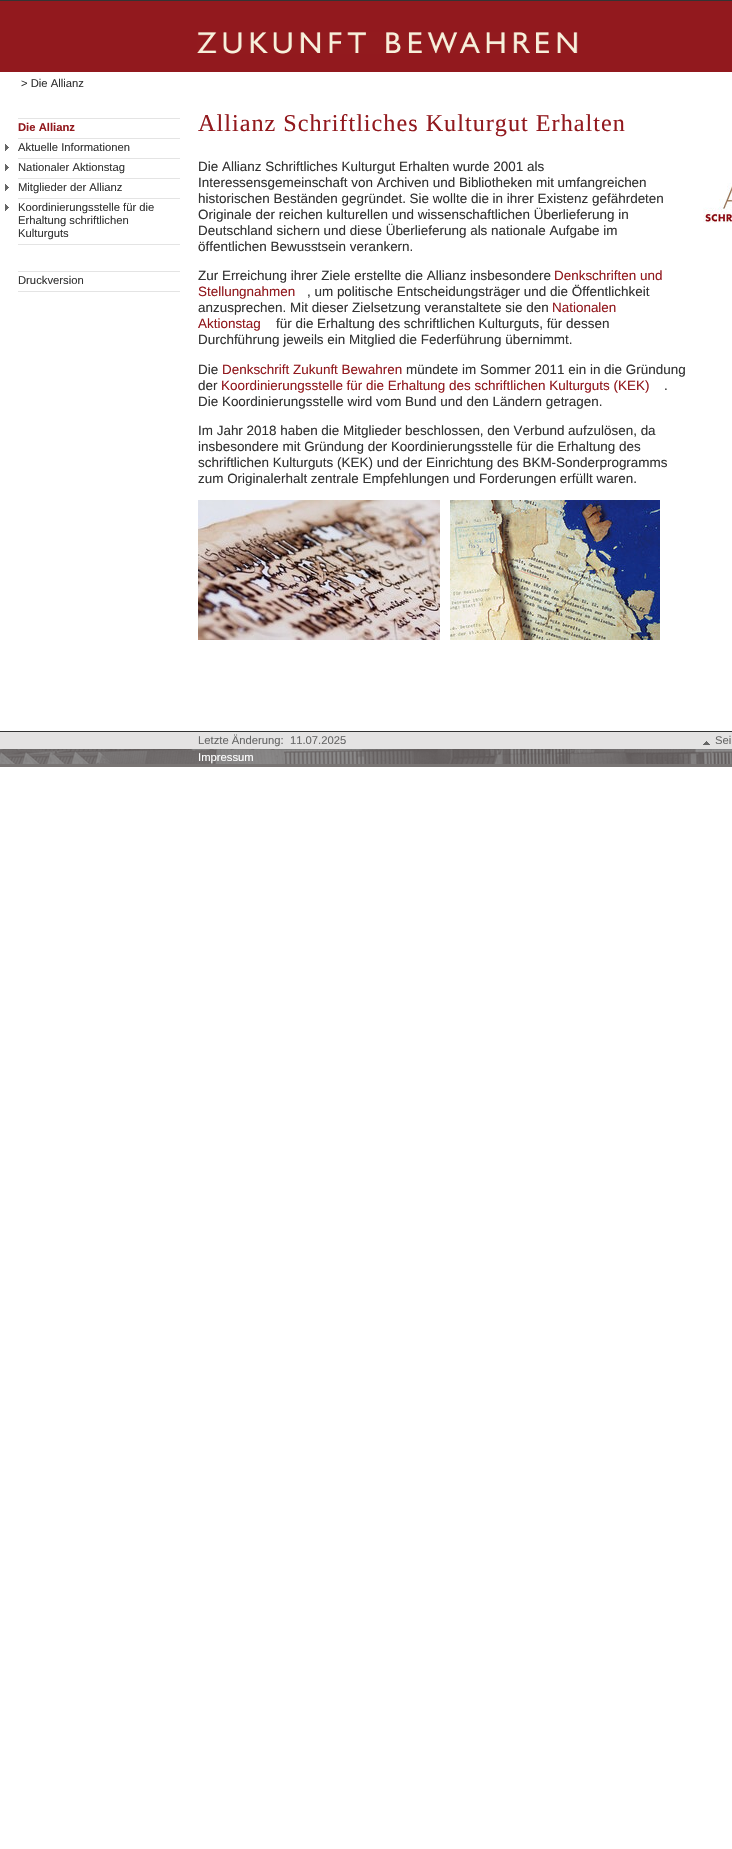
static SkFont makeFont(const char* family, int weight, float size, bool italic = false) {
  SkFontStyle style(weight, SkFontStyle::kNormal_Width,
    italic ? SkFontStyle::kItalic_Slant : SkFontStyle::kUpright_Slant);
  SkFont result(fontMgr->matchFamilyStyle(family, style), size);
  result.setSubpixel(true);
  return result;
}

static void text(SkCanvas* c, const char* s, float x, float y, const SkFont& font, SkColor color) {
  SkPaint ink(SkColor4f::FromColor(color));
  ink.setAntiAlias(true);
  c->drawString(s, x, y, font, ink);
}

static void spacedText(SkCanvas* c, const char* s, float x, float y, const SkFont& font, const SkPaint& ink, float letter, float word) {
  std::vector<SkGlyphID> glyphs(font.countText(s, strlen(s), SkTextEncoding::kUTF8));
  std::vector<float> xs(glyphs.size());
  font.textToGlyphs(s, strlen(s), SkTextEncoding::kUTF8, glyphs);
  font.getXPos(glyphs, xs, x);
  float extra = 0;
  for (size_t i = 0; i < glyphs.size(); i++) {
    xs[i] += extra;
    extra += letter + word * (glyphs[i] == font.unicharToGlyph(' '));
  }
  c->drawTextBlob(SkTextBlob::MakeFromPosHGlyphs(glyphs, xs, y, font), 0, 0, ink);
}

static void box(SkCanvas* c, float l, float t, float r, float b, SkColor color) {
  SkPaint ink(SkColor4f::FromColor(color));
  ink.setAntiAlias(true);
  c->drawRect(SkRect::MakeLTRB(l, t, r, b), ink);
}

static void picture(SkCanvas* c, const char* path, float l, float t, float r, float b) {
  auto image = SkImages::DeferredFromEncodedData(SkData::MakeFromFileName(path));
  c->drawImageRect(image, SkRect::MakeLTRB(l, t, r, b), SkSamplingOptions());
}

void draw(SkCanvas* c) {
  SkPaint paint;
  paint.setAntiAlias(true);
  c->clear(0xffffffff);
  box(c, 0, 1, 732, 72, 0xff92191e);
  box(c, 0, 0, 732, 1, 0xff333333);
  picture(c, "img_01.png", 197, 32, 578, 54);
  SkFont face1 = makeFont("Liberation Sans", 400, 11.25f);
  text(c, "> Die Allianz", 21, 87, face1, 0xff333333);
  box(c, 18, 118, 180, 119, 0xffe4e4e4);
  SkFont face2 = makeFont("Liberation Sans", 700, 11.25f);
  text(c, "Die Allianz", 18, 131, face2, 0xff92191e);
  box(c, 18, 138, 180, 139, 0xffe4e4e4);
  picture(c, "img_02.png", 5, 144, 9, 151);
  text(c, "Aktuelle Informationen", 18, 151, face1, 0xff333333);
  box(c, 18, 158, 180, 159, 0xffe4e4e4);
  picture(c, "img_02.png", 5, 164, 9, 171);
  text(c, "Nationaler Aktionstag", 18, 171, face1, 0xff333333);
  box(c, 18, 178, 180, 179, 0xffe4e4e4);
  picture(c, "img_02.png", 5, 184, 9, 191);
  text(c, "Mitglieder der Allianz", 18, 191, face1, 0xff333333);
  box(c, 18, 198, 180, 199, 0xffe4e4e4);
  picture(c, "img_02.png", 5, 204, 9, 211);
  text(c, "Koordinierungsstelle für die", 18, 211, face1, 0xff333333);
  text(c, "Erhaltung schriftlichen", 18, 224, face1, 0xff333333);
  text(c, "Kulturguts", 18, 237, face1, 0xff333333);
  box(c, 18, 244, 180, 245, 0xffe4e4e4);
  box(c, 18, 271, 180, 272, 0xffe4e4e4);
  text(c, "Druckversion", 18, 284, face1, 0xff333333);
  box(c, 18, 291, 180, 292, 0xffe4e4e4);
  SkFont face3 = makeFont("Liberation Serif", 400, 24.2f);
  paint.setColor(0xff92191e);
  spacedText(c, "Allianz Schriftliches Kulturgut Erhalten", 198, 131, face3, paint, 1, 0);
  SkFont face4 = makeFont("Liberation Sans", 400, 13.45f);
  text(c, "Die Allianz Schriftliches Kulturgut Erhalten wurde 2001 als", 198, 171, face4, 0xff333333);
  text(c, "Interessensgemeinschaft von Archiven und Bibliotheken mit umfangreichen", 198, 187, face4, 0xff333333);
  text(c, "historischen Beständen gegründet. Sie wollte die in ihrer Existenz gefährdeten", 198, 203, face4, 0xff333333);
  text(c, "Originale der reichen kulturellen und wissenschaftlichen Überlieferung in", 198, 219, face4, 0xff333333);
  text(c, "Deutschland sichern und diese Überlieferung als nationale Aufgabe im", 198, 235, face4, 0xff333333);
  text(c, "öffentlichen Bewusstsein verankern.", 198, 251, face4, 0xff333333);
  text(c, "Zur Erreichung ihrer Ziele erstellte die Allianz insbesondere", 198, 280, face4, 0xff333333);
  text(c, "Denkschriften und", 554, 280, face4, 0xff92191e);
  text(c, "Stellungnahmen", 198, 296, face4, 0xff92191e);
  text(c, ", um politische Entscheidungsträger und die Öffentlichkeit", 307, 296, face4, 0xff333333);
  text(c, "anzusprechen. Mit dieser Zielsetzung veranstaltete sie den", 198, 312, face4, 0xff333333);
  text(c, "Nationalen", 552, 312, face4, 0xff92191e);
  text(c, "Aktionstag", 198, 328, face4, 0xff92191e);
  text(c, "für die Erhaltung des schriftlichen Kulturguts, für dessen", 276, 328, face4, 0xff333333);
  text(c, "Durchführung jeweils ein Mitglied die Federführung übernimmt.", 198, 344, face4, 0xff333333);
  text(c, "Die", 198, 374, face4, 0xff333333);
  text(c, "Denkschrift Zukunft Bewahren", 222, 374, face4, 0xff92191e);
  text(c, "mündete im Sommer 2011 ein in die Gründung", 406, 374, face4, 0xff333333);
  text(c, "der", 198, 390, face4, 0xff333333);
  text(c, "Koordinierungsstelle für die Erhaltung des schriftlichen Kulturguts (KEK)", 221, 390, face4, 0xff92191e);
  text(c, ".", 664, 390, face4, 0xff333333);
  text(c, "Die Koordinierungsstelle wird vom Bund und den Ländern getragen.", 198, 406, face4, 0xff333333);
  text(c, "Im Jahr 2018 haben die Mitglieder beschlossen, den Verbund aufzulösen, da", 198, 435, face4, 0xff333333);
  text(c, "insbesondere mit Gründung der Koordinierungsstelle für die Erhaltung des", 198, 451, face4, 0xff333333);
  text(c, "schriftlichen Kulturguts (KEK) und der Einrichtung des BKM-Sonderprogramms", 198, 467, face4, 0xff333333);
  text(c, "zum Originalerhalt zentrale Empfehlungen und Forderungen erfüllt waren.", 198, 483, face4, 0xff333333);
  picture(c, "img_03.png", 198, 500, 440, 640);
  picture(c, "img_04.png", 450, 500, 660, 640);
  picture(c, "img_05.png", 703, 183, 732, 223);
  box(c, 0, 764, 732, 767, 0xff797574);
  box(c, 0, 731, 732, 732, 0xff333333);
  box(c, 0, 732, 732, 749, 0xffe4e3e3);
  text(c, "Letzte Änderung:  11.07.2025", 198, 744, face1, 0xff666666);
  picture(c, "img_06.png", 703, 741, 710, 745);
  text(c, "Sei", 715, 744, face1, 0xff666666);
  picture(c, "img_07.png", 0, 749, 732, 764);
  text(c, "Impressum", 198, 761, face1, 0xffffffff);
}
